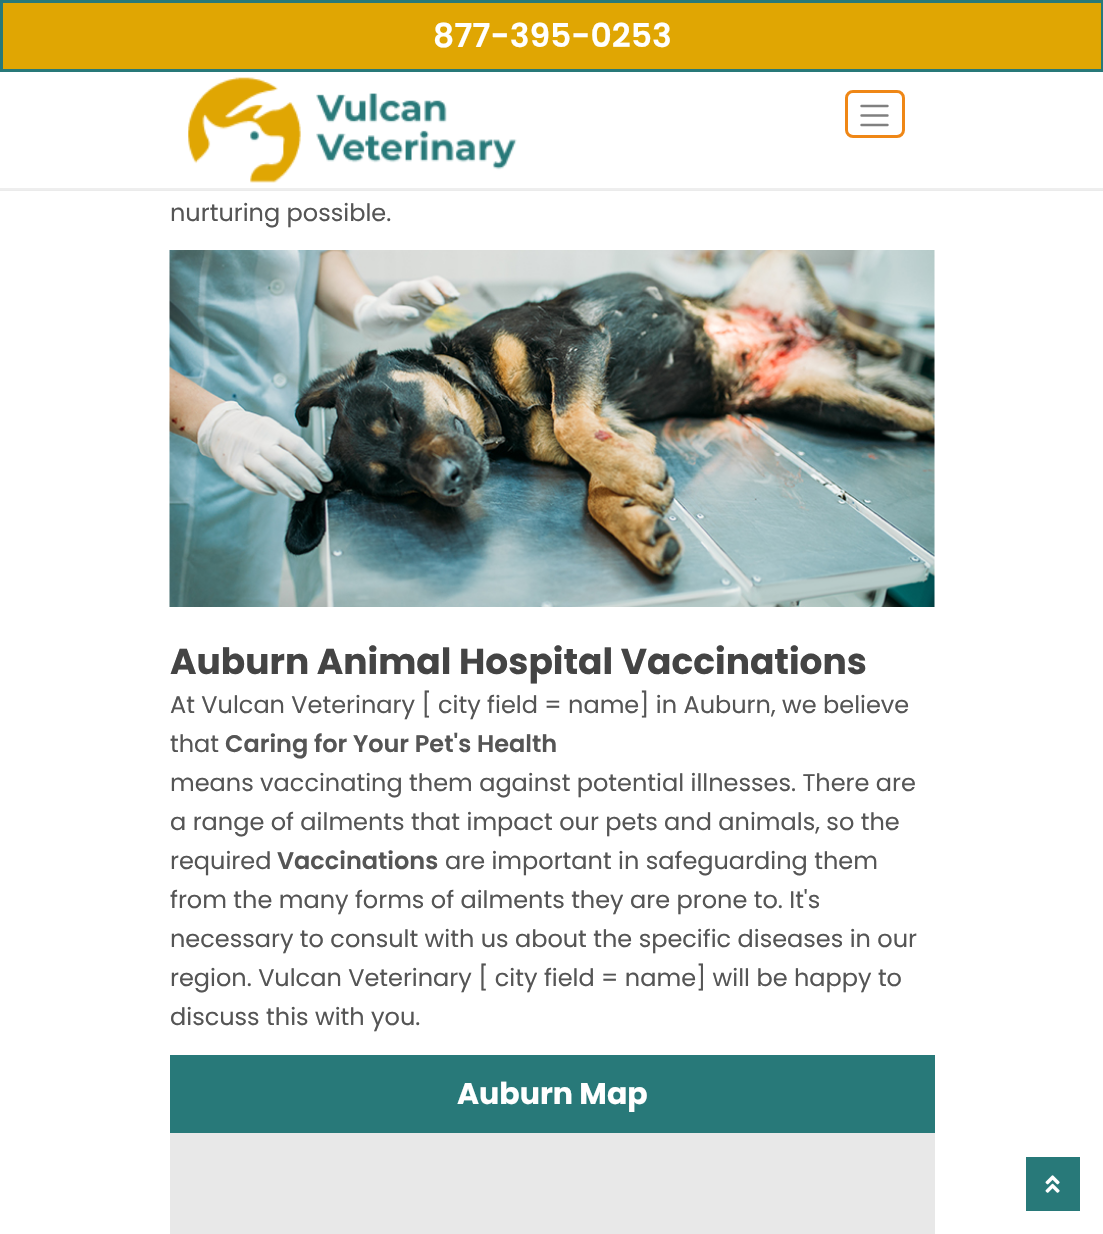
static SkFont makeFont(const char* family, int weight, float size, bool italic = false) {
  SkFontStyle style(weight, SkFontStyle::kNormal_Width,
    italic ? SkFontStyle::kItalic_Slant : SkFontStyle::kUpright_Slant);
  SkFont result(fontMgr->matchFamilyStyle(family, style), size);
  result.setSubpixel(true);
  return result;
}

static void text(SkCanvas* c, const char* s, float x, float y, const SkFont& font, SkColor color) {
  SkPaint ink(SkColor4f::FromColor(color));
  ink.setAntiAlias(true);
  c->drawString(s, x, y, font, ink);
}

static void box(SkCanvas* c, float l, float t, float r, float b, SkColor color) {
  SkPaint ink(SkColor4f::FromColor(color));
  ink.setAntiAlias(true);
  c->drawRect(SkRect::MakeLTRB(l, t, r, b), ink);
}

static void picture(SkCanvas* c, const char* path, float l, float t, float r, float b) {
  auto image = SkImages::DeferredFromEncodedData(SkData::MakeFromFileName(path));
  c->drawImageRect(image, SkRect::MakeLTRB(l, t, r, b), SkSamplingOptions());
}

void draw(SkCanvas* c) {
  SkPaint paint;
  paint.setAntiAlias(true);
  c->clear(0xffffffff);
  box(c, 0, 190, 1103, 191, 0xffebebeb);
  paint.setColor(0xffe0a603);
  c->drawRect(SkRect::MakeLTRB(1.5f, 1.5f, 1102.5f, 70.5f), paint);
  paint.setStyle(SkPaint::kStroke_Style);
  paint.setStrokeWidth(3);
  paint.setColor(0xff287979);
  c->drawRect(SkRect::MakeLTRB(1.5f, 1.5f, 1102.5f, 70.5f), paint);
  SkFont face1 = makeFont("Poppins", 600, 33);
  text(c, "877-395-0253", 433, 47, face1, 0xffffffff);
  picture(c, "img_01.png", 188, 77, 517, 183);
  paint.setColor(0xffef8716);
  c->drawRoundRect(SkRect::MakeLTRB(846.5f, 91.5f, 903.5f, 136.5f), 6.5f, 6.5f, paint);
  paint.setStrokeWidth(2.4f);
  paint.setStrokeCap(SkPaint::kRound_Cap);
  paint.setColor(0xff808080);
  c->drawPath(SkPathBuilder().moveTo(861.5f, 106).lineTo(887.5f, 106).moveTo(861.5f, 115.5f).lineTo(887.5f, 115.5f).moveTo(861.5f, 125).lineTo(887.5f, 125).detach(), paint);
  box(c, 0, 188, 1103, 190, 0xffeeeeee);
  SkFont face2 = makeFont("Poppins", 400, 24);
  text(c, "nurturing possible.", 170, 221, face2, 0xff555555);
  picture(c, "img_02.png", 169, 250, 935, 607);
  SkFont face3 = makeFont("Poppins", 700, 36);
  text(c, "Auburn Animal Hospital Vaccinations", 170, 674, face3, 0xff444444);
  text(c, "At Vulcan Veterinary [ city field = name] in Auburn, we believe", 170, 713, face2, 0xff555555);
  text(c, "that", 170, 752, face2, 0xff555555);
  SkFont face4 = makeFont("Poppins", 600, 24);
  text(c, "Caring for Your Pet's Health", 225, 752, face4, 0xff555555);
  text(c, "means vaccinating them against potential illnesses. There are", 170, 791, face2, 0xff555555);
  text(c, "a range of ailments that impact our pets and animals, so the", 170, 830, face2, 0xff555555);
  text(c, "required", 170, 869, face2, 0xff555555);
  text(c, "Vaccinations", 277, 869, face4, 0xff555555);
  text(c, "are important in safeguarding them", 445, 869, face2, 0xff555555);
  text(c, "from the many forms of ailments they are prone to. It's", 170, 908, face2, 0xff555555);
  text(c, "necessary to consult with us about the specific diseases in our", 170, 947, face2, 0xff555555);
  text(c, "region. Vulcan Veterinary [ city field = name] will be happy to", 170, 986, face2, 0xff555555);
  text(c, "discuss this with you.", 170, 1025, face2, 0xff555555);
  box(c, 170, 1133, 935, 1234, 0xffe8e8e8);
  box(c, 170, 1055, 935, 1133, 0xff287979);
  SkFont face5 = makeFont("Poppins", 700, 30);
  text(c, "Auburn Map", 457, 1104, face5, 0xffffffff);
  box(c, 1026, 1157, 1080, 1211, 0xff287979);
  picture(c, "img_03.png", 1045, 1175, 1060, 1193);
}
